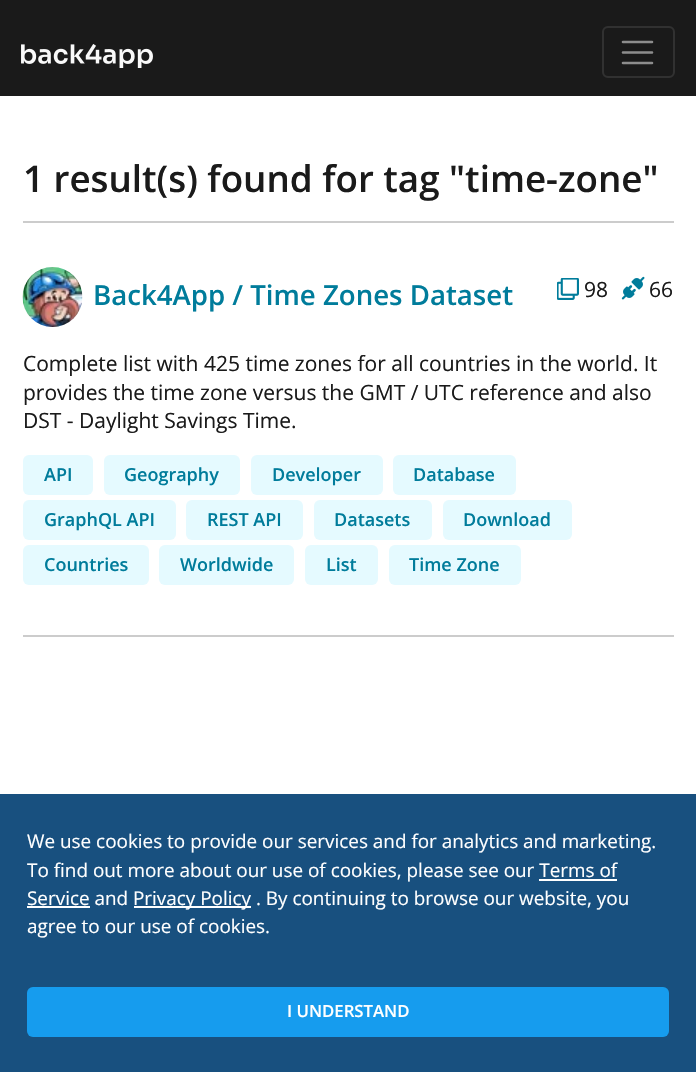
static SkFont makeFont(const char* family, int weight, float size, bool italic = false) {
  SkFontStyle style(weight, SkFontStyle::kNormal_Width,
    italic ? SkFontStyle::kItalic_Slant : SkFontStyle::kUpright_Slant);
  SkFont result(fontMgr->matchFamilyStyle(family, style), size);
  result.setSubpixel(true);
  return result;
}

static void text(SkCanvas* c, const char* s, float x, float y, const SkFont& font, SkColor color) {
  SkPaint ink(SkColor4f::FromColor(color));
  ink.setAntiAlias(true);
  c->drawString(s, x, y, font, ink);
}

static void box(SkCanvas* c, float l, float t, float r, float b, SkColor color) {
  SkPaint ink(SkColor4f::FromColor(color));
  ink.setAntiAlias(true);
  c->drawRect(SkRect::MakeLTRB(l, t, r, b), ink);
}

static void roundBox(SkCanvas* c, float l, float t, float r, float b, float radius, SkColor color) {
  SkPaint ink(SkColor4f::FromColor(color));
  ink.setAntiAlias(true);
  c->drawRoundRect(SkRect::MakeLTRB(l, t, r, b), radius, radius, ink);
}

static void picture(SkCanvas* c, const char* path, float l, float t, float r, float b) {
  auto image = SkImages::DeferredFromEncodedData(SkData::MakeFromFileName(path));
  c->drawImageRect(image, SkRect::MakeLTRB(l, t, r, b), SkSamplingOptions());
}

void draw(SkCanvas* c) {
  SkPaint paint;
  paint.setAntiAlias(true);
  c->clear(0xffffffff);
  box(c, 0, 0, 696, 96, 0xff1a1a1a);
  picture(c, "img_01.png", 21, 44, 153, 68);
  paint.setStyle(SkPaint::kStroke_Style);
  paint.setStrokeWidth(2);
  paint.setColor(0xff313131);
  c->drawRoundRect(SkRect::MakeLTRB(603, 27, 674, 77), 5, 5, paint);
  paint.setStrokeWidth(2.6f);
  paint.setStrokeCap(SkPaint::kRound_Cap);
  paint.setColor(0xff8d8d8d);
  c->drawPath(SkPathBuilder().moveTo(623, 42).lineTo(652, 42).moveTo(623, 52.5f).lineTo(652, 52.5f).moveTo(623, 63).lineTo(652, 63).detach(), paint);
  SkFont face1 = makeFont("Open Sans", 600, 36.75f);
  text(c, "1 result(s) found for tag \"time-zone\"", 23, 192, face1, 0xff1a1a1a);
  box(c, 23, 221, 674, 223, 0xffcccccc);
  picture(c, "img_02.png", 22, 267, 83, 327);
  SkFont face2 = makeFont("Open Sans", 600, 27.6f);
  text(c, "Back4App / Time Zones Dataset", 93, 305, face2, 0xff007c9b);
  picture(c, "img_03.png", 557, 278, 579, 300);
  SkFont face3 = makeFont("Open Sans", 400, 21);
  text(c, "98", 584, 297, face3, 0xff1a1a1a);
  picture(c, "img_04.png", 621, 276, 645, 300);
  text(c, "66", 649, 297, face3, 0xff1a1a1a);
  text(c, "Complete list with 425 time zones for all countries in the world. It", 23, 371, face3, 0xff1a1a1a);
  text(c, "provides the time zone versus the GMT / UTC reference and also", 23, 400, face3, 0xff1a1a1a);
  text(c, "DST - Daylight Savings Time.", 23, 428, face3, 0xff1a1a1a);
  roundBox(c, 23, 455, 93, 495, 6, 0xffe5faff);
  SkFont face4 = makeFont("Open Sans", 600, 18);
  text(c, "API", 44, 481, face4, 0xff007c9b);
  roundBox(c, 104, 455, 240, 495, 6, 0xffe5faff);
  text(c, "Geography", 124, 481, face4, 0xff007c9b);
  roundBox(c, 251, 455, 383, 495, 6, 0xffe5faff);
  text(c, "Developer", 272, 481, face4, 0xff007c9b);
  roundBox(c, 393, 455, 516, 495, 6, 0xffe5faff);
  text(c, "Database", 413, 481, face4, 0xff007c9b);
  roundBox(c, 23, 500, 176, 540, 6, 0xffe5faff);
  text(c, "GraphQL API", 44, 526, face4, 0xff007c9b);
  roundBox(c, 186, 500, 303, 540, 6, 0xffe5faff);
  text(c, "REST API", 207, 526, face4, 0xff007c9b);
  roundBox(c, 314, 500, 432, 540, 6, 0xffe5faff);
  text(c, "Datasets", 334, 526, face4, 0xff007c9b);
  roundBox(c, 443, 500, 572, 540, 6, 0xffe5faff);
  text(c, "Download", 463, 526, face4, 0xff007c9b);
  roundBox(c, 23, 545, 149, 585, 6, 0xffe5faff);
  text(c, "Countries", 44, 571, face4, 0xff007c9b);
  roundBox(c, 159, 545, 294, 585, 6, 0xffe5faff);
  text(c, "Worldwide", 180, 571, face4, 0xff007c9b);
  roundBox(c, 305, 545, 378, 585, 6, 0xffe5faff);
  text(c, "List", 326, 571, face4, 0xff007c9b);
  roundBox(c, 389, 545, 521, 585, 6, 0xffe5faff);
  text(c, "Time Zone", 409, 571, face4, 0xff007c9b);
  box(c, 23, 635, 674, 637, 0xffcccccc);
  box(c, 0, 794, 696, 1072, 0xff18507f);
  SkFont face5 = makeFont("Open Sans", 400, 18.9f);
  text(c, "We use cookies to provide our services and for analytics and marketing.", 27, 848, face5, 0xffffffff);
  text(c, "To find out more about our use of cookies, please see our Terms of", 27, 877, face5, 0xffffffff);
  text(c, "Service and", 27, 905, face5, 0xffffffff);
  box(c, 539, 879, 617, 881, 0xffffffff);
  box(c, 27, 906, 90, 908, 0xffffffff);
  box(c, 134, 906, 251, 908, 0xffffffff);
  text(c, "Privacy Policy . By continuing to browse our website, you", 133, 905, face5, 0xffffffff);
  text(c, "agree to our use of cookies.", 27, 933, face5, 0xffffffff);
  roundBox(c, 27, 987, 669, 1037, 6, 0xff169cee);
  SkFont face6 = makeFont("Open Sans", 600, 16.75f);
  text(c, "I UNDERSTAND", 287, 1017, face6, 0xffffffff);
}
